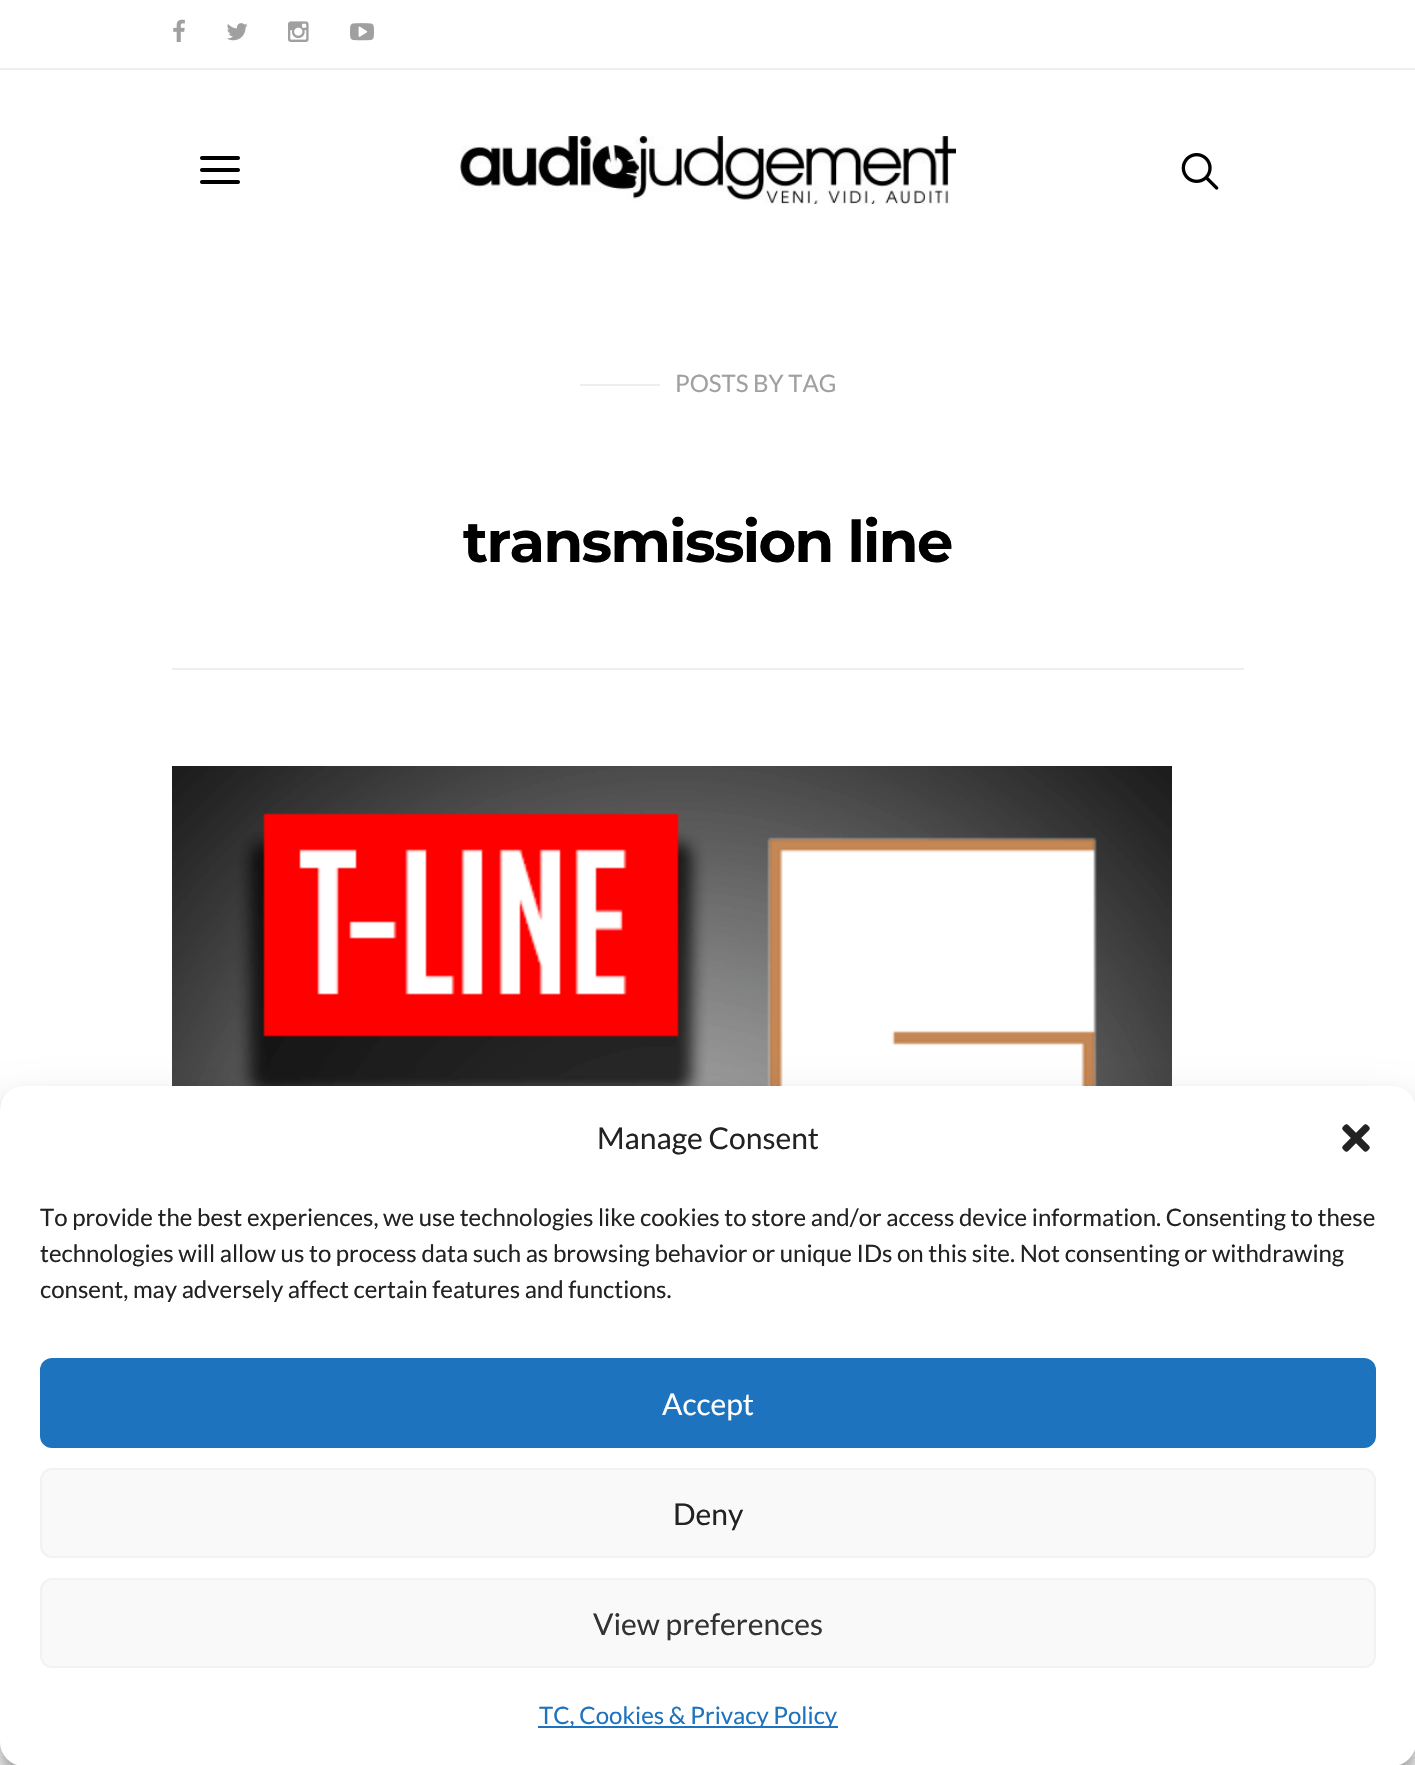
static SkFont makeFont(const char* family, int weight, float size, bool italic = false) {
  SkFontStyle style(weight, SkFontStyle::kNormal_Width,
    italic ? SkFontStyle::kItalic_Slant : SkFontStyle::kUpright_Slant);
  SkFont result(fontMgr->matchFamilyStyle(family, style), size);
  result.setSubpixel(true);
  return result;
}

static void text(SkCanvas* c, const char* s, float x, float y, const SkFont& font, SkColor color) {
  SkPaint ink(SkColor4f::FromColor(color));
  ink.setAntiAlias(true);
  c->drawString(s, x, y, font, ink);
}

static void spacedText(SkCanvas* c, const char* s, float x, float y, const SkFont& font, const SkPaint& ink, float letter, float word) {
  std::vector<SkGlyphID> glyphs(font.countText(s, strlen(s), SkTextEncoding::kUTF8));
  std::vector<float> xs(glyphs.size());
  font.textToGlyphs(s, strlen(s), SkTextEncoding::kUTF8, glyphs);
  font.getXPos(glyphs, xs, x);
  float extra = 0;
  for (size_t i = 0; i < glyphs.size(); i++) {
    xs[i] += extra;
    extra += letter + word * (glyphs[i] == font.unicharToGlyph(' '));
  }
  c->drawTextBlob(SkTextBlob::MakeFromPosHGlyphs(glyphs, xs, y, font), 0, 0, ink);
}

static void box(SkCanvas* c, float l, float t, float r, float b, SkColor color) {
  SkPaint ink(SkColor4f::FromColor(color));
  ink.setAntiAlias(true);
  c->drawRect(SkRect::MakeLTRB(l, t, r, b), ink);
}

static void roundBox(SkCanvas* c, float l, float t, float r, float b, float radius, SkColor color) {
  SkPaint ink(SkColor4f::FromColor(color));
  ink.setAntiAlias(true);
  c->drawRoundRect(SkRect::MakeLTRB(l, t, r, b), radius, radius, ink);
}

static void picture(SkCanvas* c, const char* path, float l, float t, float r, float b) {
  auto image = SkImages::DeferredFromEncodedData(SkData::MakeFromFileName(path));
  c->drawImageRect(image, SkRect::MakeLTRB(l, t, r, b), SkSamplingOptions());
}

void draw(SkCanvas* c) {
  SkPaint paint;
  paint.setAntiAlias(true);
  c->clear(0xffffffff);
  box(c, 0, 68, 1415, 70, 0xffeeeeee);
  picture(c, "img_01.png", 173, 19, 185, 42);
  picture(c, "img_02.png", 226, 23, 248, 41);
  picture(c, "img_03.png", 288, 21, 309, 42);
  picture(c, "img_04.png", 350, 23, 374, 41);
  picture(c, "img_05.png", 200, 156, 240, 184);
  picture(c, "img_06.png", 460, 136, 956, 204);
  picture(c, "img_07.png", 1181, 153, 1219, 190);
  box(c, 172, 668, 1244, 670, 0xffeceeef);
  box(c, 580, 384, 660, 386, 0xffeceeef);
  SkFont face1 = makeFont("Lato", 400, 24);
  text(c, "POSTS BY TAG", 675, 392, face1, 0xffa0a0a0);
  SkFont face2 = makeFont("Montserrat", 700, 57.5f);
  paint.setColor(0xff000000);
  spacedText(c, "transmission line", 463, 562, face2, paint, -1.6f, 0);
  picture(c, "img_08.png", 172, 766, 1172, 1086);
  paint.setColor(0x3b000000);
  paint.setMaskFilter(SkMaskFilter::MakeBlur(kNormal_SkBlurStyle, 6));
  c->drawRoundRect(SkRect::MakeLTRB(0, 1098, 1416, 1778), 24, 24, paint);
  paint.setMaskFilter(nullptr);
  paint.setColor(0x30000000);
  paint.setMaskFilter(SkMaskFilter::MakeBlur(kNormal_SkBlurStyle, 20));
  c->drawRoundRect(SkRect::MakeLTRB(0, 1106, 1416, 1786), 24, 24, paint);
  paint.setMaskFilter(nullptr);
  roundBox(c, 0, 1086, 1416, 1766, 24, 0xffffffff);
  SkFont face3 = makeFont("Lato", 400, 30);
  text(c, "Manage Consent", 597, 1149, face3, 0xff222222);
  picture(c, "img_09.png", 1342, 1124, 1370, 1152);
  text(c, "To provide the best experiences, we use technologies like cookies to store and/or access device information. Consenting to these", 40, 1226, face1, 0xff222222);
  text(c, "technologies will allow us to process data such as browsing behavior or unique IDs on this site. Not consenting or withdrawing", 40, 1262, face1, 0xff222222);
  text(c, "consent, may adversely affect certain features and functions.", 40, 1298, face1, 0xff222222);
  paint.setColor(0xff1e73be);
  c->drawRoundRect(SkRect::MakeLTRB(41, 1359, 1375, 1447), 11, 11, paint);
  paint.setStyle(SkPaint::kStroke_Style);
  paint.setStrokeWidth(2);
  c->drawRoundRect(SkRect::MakeLTRB(41, 1359, 1375, 1447), 11, 11, paint);
  text(c, "Accept", 662, 1415, face3, 0xffffffff);
  paint.setStyle(SkPaint::kFill_Style);
  paint.setColor(0xfff9f9f9);
  c->drawRoundRect(SkRect::MakeLTRB(41, 1469, 1375, 1557), 11, 11, paint);
  paint.setStyle(SkPaint::kStroke_Style);
  paint.setColor(0xfff2f2f2);
  c->drawRoundRect(SkRect::MakeLTRB(41, 1469, 1375, 1557), 11, 11, paint);
  text(c, "Deny", 673, 1525, face3, 0xff222222);
  paint.setStyle(SkPaint::kFill_Style);
  paint.setColor(0xfff9f9f9);
  c->drawRoundRect(SkRect::MakeLTRB(41, 1579, 1375, 1667), 11, 11, paint);
  paint.setStyle(SkPaint::kStroke_Style);
  paint.setColor(0xfff2f2f2);
  c->drawRoundRect(SkRect::MakeLTRB(41, 1579, 1375, 1667), 11, 11, paint);
  text(c, "View preferences", 593, 1635, face3, 0xff333333);
  box(c, 538, 1726, 838, 1728, 0xff1e73be);
  text(c, "TC, Cookies & Privacy Policy", 539, 1724, face1, 0xff1e73be);
}
